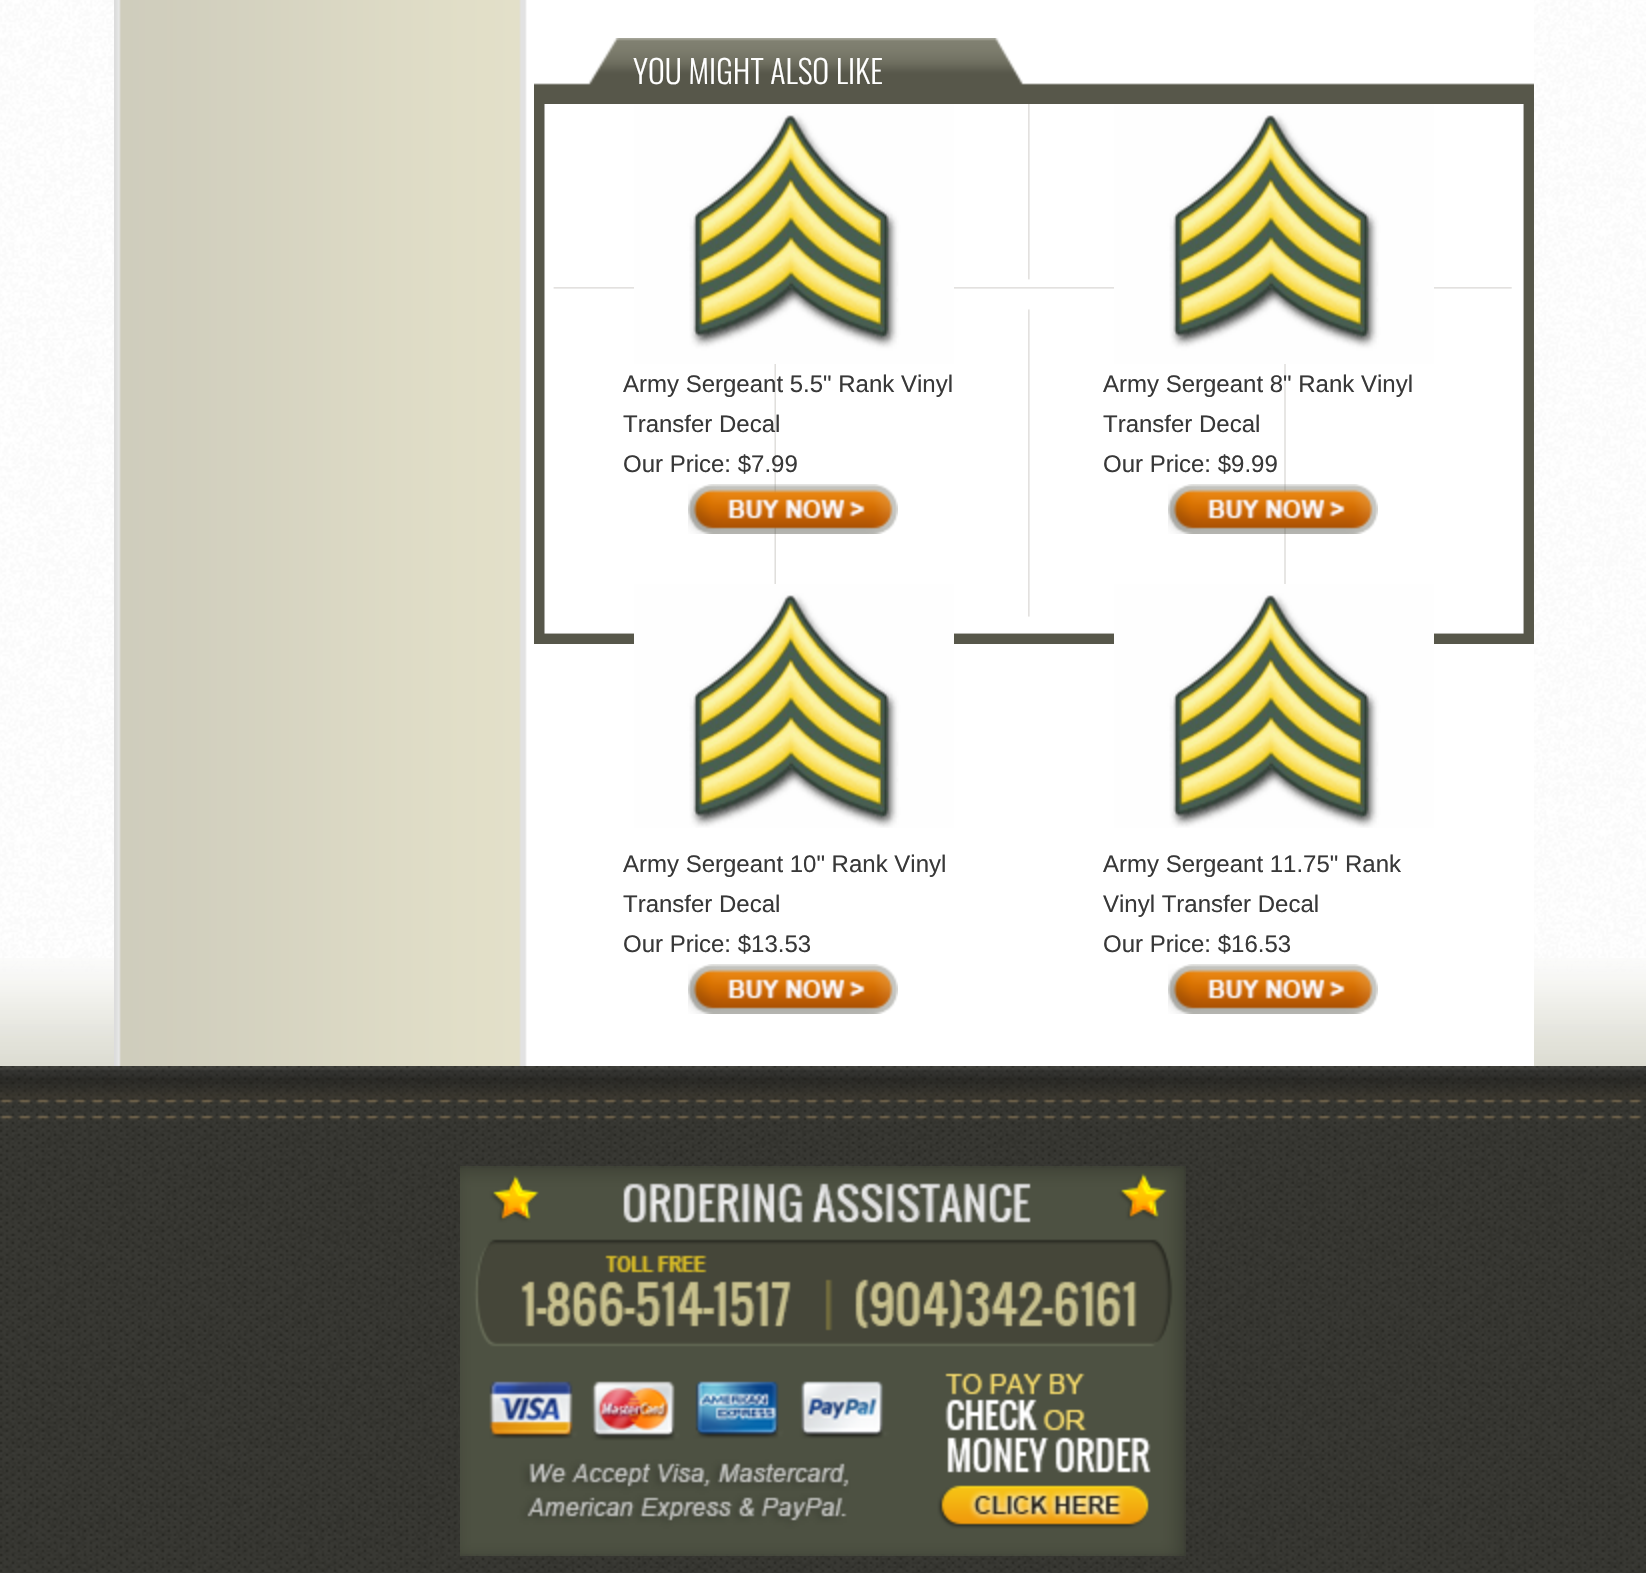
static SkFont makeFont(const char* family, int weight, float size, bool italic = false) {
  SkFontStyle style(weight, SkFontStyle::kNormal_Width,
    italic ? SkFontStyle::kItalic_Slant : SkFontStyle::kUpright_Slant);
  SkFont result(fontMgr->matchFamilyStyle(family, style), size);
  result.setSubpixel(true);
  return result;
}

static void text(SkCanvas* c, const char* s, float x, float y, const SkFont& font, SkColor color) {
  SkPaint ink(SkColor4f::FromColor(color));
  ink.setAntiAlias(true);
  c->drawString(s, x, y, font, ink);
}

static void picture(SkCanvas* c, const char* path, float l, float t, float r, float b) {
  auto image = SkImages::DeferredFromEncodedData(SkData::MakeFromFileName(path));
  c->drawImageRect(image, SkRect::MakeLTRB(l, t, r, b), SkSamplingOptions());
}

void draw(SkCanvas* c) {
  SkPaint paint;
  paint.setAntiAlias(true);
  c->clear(0xffffffff);
  picture(c, "img_01.png", 0, 0, 1646, 1060);
  picture(c, "img_02.png", 0, 958, 1646, 1066);
  picture(c, "img_03.png", 114, 0, 1534, 1066);
  picture(c, "img_04.png", 534, 38, 1534, 104);
  SkFont face1 = makeFont("Oswald", 300, 32);
  text(c, "YOU MIGHT ALSO LIKE", 633, 84, face1, 0xffffffff);
  picture(c, "img_05.png", 534, 104, 1534, 644);
  picture(c, "img_06.png", 634, 104, 954, 364);
  SkFont face2 = makeFont("Liberation Sans", 400, 24);
  text(c, "Army Sergeant 5.5\" Rank Vinyl", 623, 392, face2, 0xff383838);
  text(c, "Transfer Decal", 623, 432, face2, 0xff383838);
  text(c, "Our Price: $7.99", 623, 472, face2, 0xff383838);
  picture(c, "img_07.png", 688, 484, 898, 534);
  picture(c, "img_06.png", 1114, 104, 1434, 364);
  text(c, "Army Sergeant 8\" Rank Vinyl", 1103, 392, face2, 0xff383838);
  text(c, "Transfer Decal", 1103, 432, face2, 0xff383838);
  text(c, "Our Price: $9.99", 1103, 472, face2, 0xff383838);
  picture(c, "img_08.png", 1168, 484, 1378, 534);
  picture(c, "img_09.png", 634, 584, 954, 828);
  text(c, "Army Sergeant 10\" Rank Vinyl", 623, 872, face2, 0xff383838);
  text(c, "Transfer Decal", 623, 912, face2, 0xff383838);
  text(c, "Our Price: $13.53", 623, 952, face2, 0xff383838);
  picture(c, "img_10.png", 688, 964, 898, 1014);
  picture(c, "img_09.png", 1114, 584, 1434, 828);
  text(c, "Army Sergeant 11.75\" Rank", 1103, 872, face2, 0xff383838);
  text(c, "Vinyl Transfer Decal", 1103, 912, face2, 0xff383838);
  text(c, "Our Price: $16.53", 1103, 952, face2, 0xff383838);
  picture(c, "img_10.png", 1168, 964, 1378, 1014);
  picture(c, "img_11.png", 0, 1066, 1646, 1573);
  picture(c, "img_12.png", 460, 1166, 1186, 1556);
}
